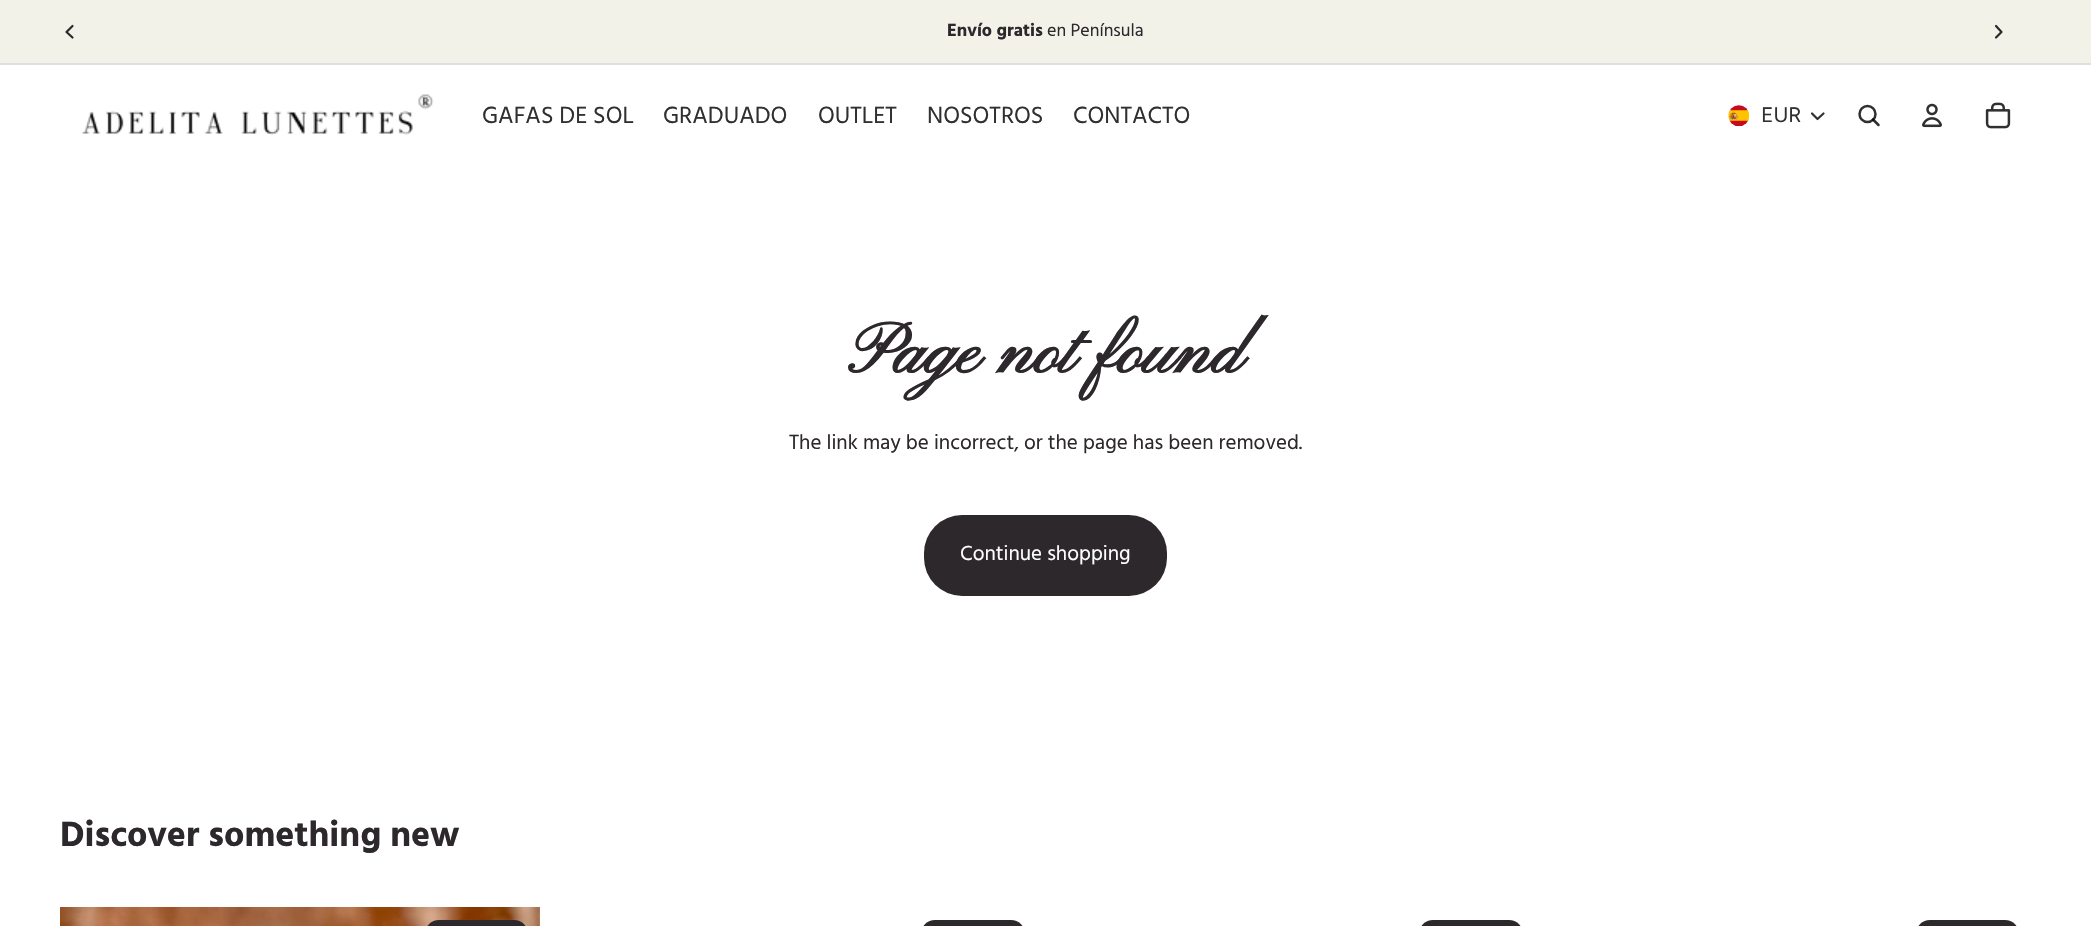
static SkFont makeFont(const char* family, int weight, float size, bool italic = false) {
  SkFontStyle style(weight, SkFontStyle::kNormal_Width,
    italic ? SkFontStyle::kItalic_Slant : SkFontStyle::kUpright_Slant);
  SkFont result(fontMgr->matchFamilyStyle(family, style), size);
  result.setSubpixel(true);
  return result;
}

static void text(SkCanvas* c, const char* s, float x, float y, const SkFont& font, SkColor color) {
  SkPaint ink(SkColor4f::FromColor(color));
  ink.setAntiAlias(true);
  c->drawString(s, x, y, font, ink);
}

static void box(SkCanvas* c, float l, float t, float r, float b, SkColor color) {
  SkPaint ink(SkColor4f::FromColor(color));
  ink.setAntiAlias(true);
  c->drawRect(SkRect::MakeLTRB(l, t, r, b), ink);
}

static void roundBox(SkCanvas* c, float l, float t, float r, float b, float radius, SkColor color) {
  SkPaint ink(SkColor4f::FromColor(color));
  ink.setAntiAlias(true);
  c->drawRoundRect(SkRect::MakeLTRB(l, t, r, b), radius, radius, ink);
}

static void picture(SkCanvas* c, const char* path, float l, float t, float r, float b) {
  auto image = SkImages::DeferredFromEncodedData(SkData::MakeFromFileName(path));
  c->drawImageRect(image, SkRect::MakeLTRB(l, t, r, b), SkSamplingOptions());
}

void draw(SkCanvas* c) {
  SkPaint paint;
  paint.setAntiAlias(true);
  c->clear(0xffffffff);
  box(c, 0, 0, 2091, 63, 0xfff2f2e9);
  box(c, 0, 63, 2091, 65, 0xffdfdfdf);
  SkFont face1 = makeFont("Hind Madurai", 700, 18);
  text(c, "Envío gratis", 947, 36, face1, 0xff2d282c);
  SkFont face2 = makeFont("Hind Madurai", 400, 18);
  text(c, "en Península", 1047, 36, face2, 0xff2d282c);
  paint.setStyle(SkPaint::kStroke_Style);
  paint.setStrokeWidth(2.2f);
  paint.setStrokeCap(SkPaint::kRound_Cap);
  paint.setStrokeJoin(SkPaint::kRound_Join);
  paint.setColor(0xff2d282c);
  c->drawPath(SkPathBuilder().moveTo(72.5f, 26).lineTo(66.5f, 32).lineTo(72.5f, 37.5f).detach(), paint);
  c->drawPath(SkPathBuilder().moveTo(1996, 26).lineTo(2001.5f, 32).lineTo(1996, 37.5f).detach(), paint);
  picture(c, "img_01.png", 82, 94, 434, 135);
  SkFont face3 = makeFont("Hind Madurai", 400, 24);
  text(c, "GAFAS DE SOL", 482, 123, face3, 0xff303030);
  text(c, "GRADUADO", 663, 123, face3, 0xff303030);
  text(c, "OUTLET", 818, 123, face3, 0xff303030);
  text(c, "NOSOTROS", 927, 123, face3, 0xff303030);
  text(c, "CONTACTO", 1073, 123, face3, 0xff303030);
  picture(c, "img_02.png", 1728, 105, 1749, 126);
  SkFont face4 = makeFont("Figtree", 400, 21);
  text(c, "EUR", 1761, 122, face4, 0xff303030);
  paint.setColor(0xff303030);
  c->drawPath(SkPathBuilder().moveTo(1823.5f, 113.5f).lineTo(1817.5f, 119).lineTo(1812, 113.5f).detach(), paint);
  paint.setStrokeWidth(2.5f);
  paint.setStrokeCap(SkPaint::kButt_Cap);
  paint.setStrokeJoin(SkPaint::kMiter_Join);
  c->drawCircle(1867.5f, 114, 8, paint);
  paint.setStrokeCap(SkPaint::kRound_Cap);
  paint.setStrokeJoin(SkPaint::kRound_Join);
  paint.setColor(0xcf000000);
  c->drawPath(SkPathBuilder().moveTo(1873, 119.5f).lineTo(1878.5f, 125).detach(), paint);
  picture(c, "img_03.png", 1922, 103, 1942, 128);
  picture(c, "img_04.png", 1985, 102, 2011, 129);
  SkFont face5 = makeFont("Pinyon Script", 700, 72);
  text(c, "Page not found", 848, 373, face5, 0xff2d282c);
  SkFont face6 = makeFont("Hind Madurai", 400, 21);
  text(c, "The link may be incorrect, or the page has been removed.", 789, 449, face6, 0xff2d282c);
  roundBox(c, 924, 515, 1167, 596, 38, 0xff2d282c);
  text(c, "Continue shopping", 960, 560, face6, 0xffffffff);
  SkFont face7 = makeFont("Hind Madurai", 700, 36);
  text(c, "Discover something new", 60, 846, face7, 0xff2d282c);
  picture(c, "img_05.png", 60, 907, 540, 926);
  roundBox(c, 425, 920, 528, 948, 21.5f, 0xff2d282c);
  roundBox(c, 921, 920, 1025, 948, 21.5f, 0xff2d282c);
  roundBox(c, 1419, 920, 1523, 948, 21.5f, 0xff2d282c);
  roundBox(c, 1916, 920, 2019, 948, 21.5f, 0xff2d282c);
}
